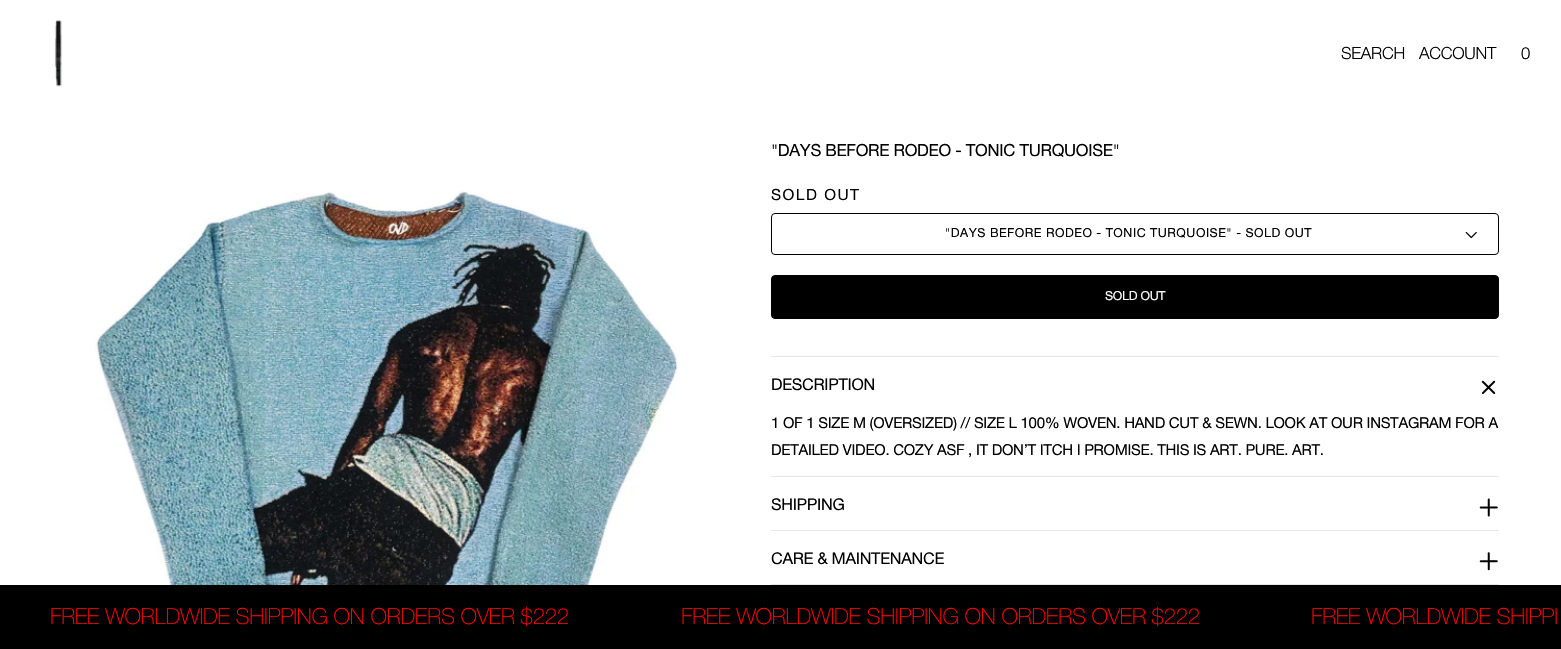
static SkFont makeFont(const char* family, int weight, float size, bool italic = false) {
  SkFontStyle style(weight, SkFontStyle::kNormal_Width,
    italic ? SkFontStyle::kItalic_Slant : SkFontStyle::kUpright_Slant);
  SkFont result(fontMgr->matchFamilyStyle(family, style), size);
  result.setSubpixel(true);
  return result;
}

static void spacedText(SkCanvas* c, const char* s, float x, float y, const SkFont& font, const SkPaint& ink, float letter, float word) {
  std::vector<SkGlyphID> glyphs(font.countText(s, strlen(s), SkTextEncoding::kUTF8));
  std::vector<float> xs(glyphs.size());
  font.textToGlyphs(s, strlen(s), SkTextEncoding::kUTF8, glyphs);
  font.getXPos(glyphs, xs, x);
  float extra = 0;
  for (size_t i = 0; i < glyphs.size(); i++) {
    xs[i] += extra;
    extra += letter + word * (glyphs[i] == font.unicharToGlyph(' '));
  }
  c->drawTextBlob(SkTextBlob::MakeFromPosHGlyphs(glyphs, xs, y, font), 0, 0, ink);
}

static void box(SkCanvas* c, float l, float t, float r, float b, SkColor color) {
  SkPaint ink(SkColor4f::FromColor(color));
  ink.setAntiAlias(true);
  c->drawRect(SkRect::MakeLTRB(l, t, r, b), ink);
}

static void picture(SkCanvas* c, const char* path, float l, float t, float r, float b) {
  auto image = SkImages::DeferredFromEncodedData(SkData::MakeFromFileName(path));
  c->drawImageRect(image, SkRect::MakeLTRB(l, t, r, b), SkSamplingOptions());
}

void draw(SkCanvas* c) {
  SkPaint paint;
  paint.setAntiAlias(true);
  c->clear(0xffffffff);
  picture(c, "img_01.png", 54, 20, 62, 87);
  SkFont face1 = makeFont("Helvetica Neue", 300, 16.7f);
  paint.setColor(0xff000000);
  spacedText(c, "SEARCH", 1341, 59, face1, paint, -0.28f, 0);
  spacedText(c, "ACCOUNT", 1419, 59, face1, paint, -0.28f, 0);
  spacedText(c, "0", 1521, 59, face1, paint, -0.28f, 0);
  picture(c, "img_02.png", 95, 190, 678, 585);
  SkFont face2 = makeFont("Helvetica Neue", 400, 16.7f);
  spacedText(c, "\"DAYS BEFORE RODEO - TONIC TURQUOISE\"", 771, 156, face2, paint, -0.28f, 0);
  SkFont face3 = makeFont("Helvetica Neue", 400, 15.5f);
  spacedText(c, "SOLD OUT", 771, 200, face3, paint, 1.5f, 0);
  paint.setStyle(SkPaint::kStroke_Style);
  paint.setStrokeWidth(1);
  c->drawRoundRect(SkRect::MakeLTRB(771.5f, 213.5f, 1498.5f, 254.5f), 3.5f, 3.5f, paint);
  SkFont face4 = makeFont("Helvetica Neue", 400, 12.5f);
  paint.setStyle(SkPaint::kFill_Style);
  spacedText(c, "\"DAYS BEFORE RODEO - TONIC TURQUOISE\" - SOLD OUT", 945, 237, face4, paint, 0.5f, 0);
  picture(c, "img_03.png", 1465, 231, 1477, 239);
  c->drawRoundRect(SkRect::MakeLTRB(771.5f, 275.5f, 1498.5f, 318.5f), 3.5f, 3.5f, paint);
  paint.setStyle(SkPaint::kStroke_Style);
  c->drawRoundRect(SkRect::MakeLTRB(771.5f, 275.5f, 1498.5f, 318.5f), 3.5f, 3.5f, paint);
  paint.setStyle(SkPaint::kFill_Style);
  paint.setColor(0xffffffff);
  spacedText(c, "SOLD OUT", 1105, 300, face4, paint, -0.28f, 0);
  box(c, 771, 356, 1499, 357, 0xffe6e6e6);
  box(c, 771, 476, 1499, 477, 0xffe6e6e6);
  SkFont face5 = makeFont("Helvetica Neue", 400, 16.25f);
  paint.setColor(0xff000000);
  spacedText(c, "DESCRIPTION", 771, 390, face5, paint, -0.28f, 0);
  picture(c, "img_04.png", 1481, 380, 1496, 395);
  SkFont face6 = makeFont("Helvetica Neue", 400, 15);
  spacedText(c, "1 OF 1 SIZE M (OVERSIZED) // SIZE L 100% WOVEN. HAND CUT & SEWN. LOOK AT OUR INSTAGRAM FOR A", 771, 428, face6, paint, -0.28f, 0);
  spacedText(c, "DETAILED VIDEO. COZY ASF , IT DON’T ITCH I PROMISE. THIS IS ART. PURE. ART.", 771, 455, face6, paint, -0.28f, 0);
  box(c, 771, 530, 1499, 531, 0xffe6e6e6);
  spacedText(c, "SHIPPING", 771, 510, face5, paint, -0.28f, 0);
  picture(c, "img_05.png", 1479, 498, 1498, 517);
  box(c, 771, 584, 1499, 585, 0xffe6e6e6);
  spacedText(c, "CARE & MAINTENANCE", 771, 564, face5, paint, -0.28f, 0);
  picture(c, "img_06.png", 1479, 552, 1498, 571);
  box(c, 0, 585, 1561, 649, 0xff000000);
  SkFont face7 = makeFont("Helvetica Neue", 100, 22.25f);
  paint.setColor(0xffff0202);
  spacedText(c, "FREE WORLDWIDE SHIPPING ON ORDERS OVER $222", 50, 624, face7, paint, -0.28f, 0);
  spacedText(c, "FREE WORLDWIDE SHIPPING ON ORDERS OVER $222", 681, 624, face7, paint, -0.28f, 0);
  spacedText(c, "FREE WORLDWIDE SHIPPI", 1311, 624, face7, paint, -0.28f, 0);
}
